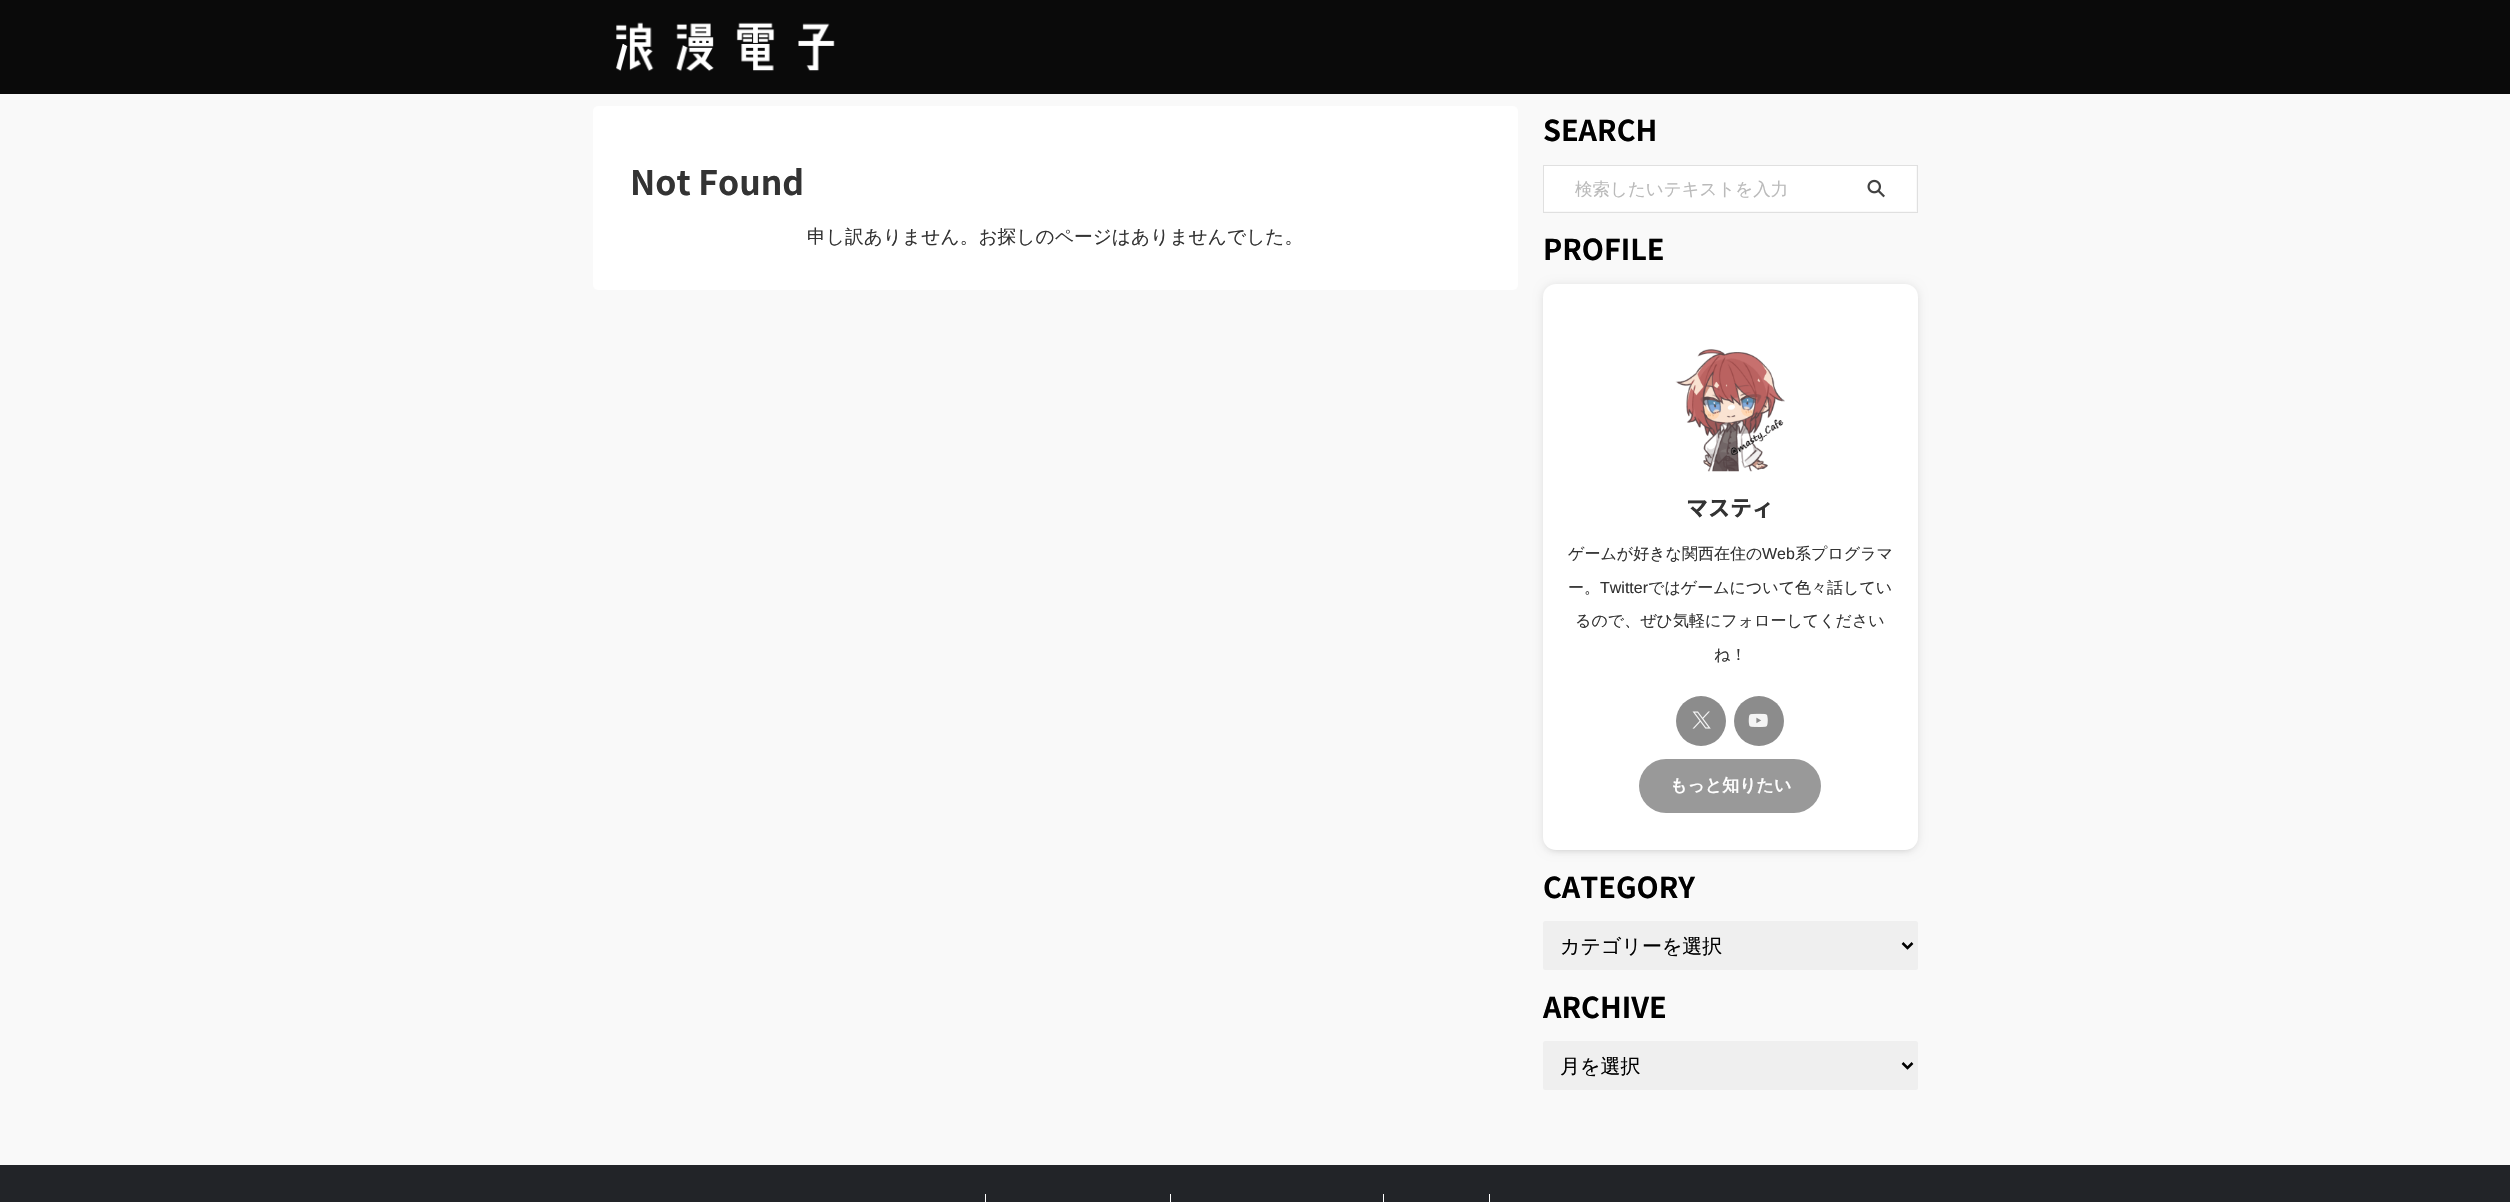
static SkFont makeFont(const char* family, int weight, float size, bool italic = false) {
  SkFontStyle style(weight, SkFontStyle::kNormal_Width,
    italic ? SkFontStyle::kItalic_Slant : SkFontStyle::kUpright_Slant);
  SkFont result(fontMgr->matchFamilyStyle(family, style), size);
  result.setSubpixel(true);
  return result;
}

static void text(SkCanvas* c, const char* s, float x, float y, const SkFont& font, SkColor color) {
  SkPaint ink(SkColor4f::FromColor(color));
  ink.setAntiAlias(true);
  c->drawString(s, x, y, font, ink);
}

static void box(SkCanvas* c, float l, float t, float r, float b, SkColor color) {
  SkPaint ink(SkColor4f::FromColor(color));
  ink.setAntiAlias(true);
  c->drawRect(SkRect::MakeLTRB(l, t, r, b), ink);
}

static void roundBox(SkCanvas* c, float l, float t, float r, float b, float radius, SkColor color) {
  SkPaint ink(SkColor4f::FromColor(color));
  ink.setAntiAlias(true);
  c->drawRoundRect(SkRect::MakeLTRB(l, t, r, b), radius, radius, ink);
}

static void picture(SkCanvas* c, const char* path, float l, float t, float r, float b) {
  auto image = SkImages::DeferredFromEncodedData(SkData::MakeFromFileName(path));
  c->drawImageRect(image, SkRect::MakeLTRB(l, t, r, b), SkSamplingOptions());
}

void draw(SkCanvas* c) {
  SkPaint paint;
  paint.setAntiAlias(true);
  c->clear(0xfff9f9f9);
  box(c, 0, 0, 2510, 94, 0xff0a0a0a);
  picture(c, "img_01.png", 616, 22, 835, 72);
  roundBox(c, 593, 106, 1518, 290, 5, 0xffffffff);
  SkFont face1 = makeFont("Noto Sans JP", 700, 33.75f);
  text(c, "Not Found", 630, 195, face1, 0xff333333);
  SkFont face2 = makeFont("WenQuanYi Zen Hei", 500, 18.75f);
  text(c, "申し訳ありません。お探しのページはありませんでした。", 807, 243, face2, 0xff333333);
  SkFont face3 = makeFont("Noto Sans JP", 700, 28.75f);
  text(c, "SEARCH", 1543, 141, face3, 0xff000000);
  paint.setStyle(SkPaint::kStroke_Style);
  paint.setStrokeWidth(1);
  paint.setColor(0xffe0e0e0);
  c->drawRect(SkRect::MakeLTRB(1543.5f, 165.5f, 1917.5f, 212.5f), paint);
  box(c, 1544, 166, 1916, 211, 0xffffffff);
  SkFont face4 = makeFont("WenQuanYi Zen Hei", 500, 17.5f);
  text(c, "検索したいテキストを入力", 1575, 195, face4, 0xffbababa);
  picture(c, "img_02.png", 1867, 179, 1885, 198);
  text(c, "PROFILE", 1543, 260, face3, 0xff000000);
  paint.setStyle(SkPaint::kFill_Style);
  paint.setColor(0x1a000000);
  paint.setMaskFilter(SkMaskFilter::MakeBlur(kNormal_SkBlurStyle, 2.5f));
  c->drawRoundRect(SkRect::MakeLTRB(1548, 294, 1913, 850), 8, 8, paint);
  paint.setMaskFilter(nullptr);
  paint.setMaskFilter(SkMaskFilter::MakeBlur(kNormal_SkBlurStyle, 5));
  c->drawRoundRect(SkRect::MakeLTRB(1543, 285, 1918, 851), 13, 13, paint);
  paint.setMaskFilter(nullptr);
  roundBox(c, 1543, 284, 1918, 850, 13, 0xffffffff);
  picture(c, "img_03.png", 1675, 349, 1785, 472);
  SkFont face5 = makeFont("Noto Sans JP", 700, 22);
  text(c, "マスティ", 1686, 516, face5, 0xff333333);
  SkFont face6 = makeFont("WenQuanYi Zen Hei", 500, 16);
  text(c, "ゲームが好きな関西在住の", 1568, 559, face6, 0xff333333);
  SkFont face7 = makeFont("Liberation Sans", 400, 16);
  text(c, "Web", 1762, 559, face7, 0xff333333);
  text(c, "系プログラマ", 1795, 559, face6, 0xff333333);
  text(c, "ー。", 1568, 593, face6, 0xff333333);
  text(c, "Twitter", 1600, 593, face7, 0xff333333);
  text(c, "ではゲームについて色々話してい", 1648, 593, face6, 0xff333333);
  text(c, "るので、ぜひ気軽にフォローしてください", 1575, 626, face6, 0xff333333);
  text(c, "ね！", 1714, 660, face6, 0xff333333);
  paint.setColor(0xff8c8c8c);
  c->drawCircle(1701, 721, 25, paint);
  picture(c, "img_04.png", 1692, 711, 1711, 729);
  c->drawCircle(1759, 721, 25, paint);
  picture(c, "img_05.png", 1748, 713, 1768, 727);
  roundBox(c, 1639, 759, 1821, 813, 27, 0xff999999);
  SkFont face8 = makeFont("WenQuanYi Zen Hei", 700, 17);
  text(c, "もっと知りたい", 1670, 791, face8, 0xffffffff);
  text(c, "CATEGORY", 1543, 898, face3, 0xff000000);
  roundBox(c, 1543, 921, 1918, 970, 2.5f, 0xffefefef);
  paint.setStyle(SkPaint::kStroke_Style);
  paint.setStrokeWidth(2.5f);
  paint.setColor(0xff000000);
  c->drawPath(SkPathBuilder().moveTo(1902.5f, 943).lineTo(1907.5f, 948).lineTo(1912.5f, 943).detach(), paint);
  SkFont face9 = makeFont("WenQuanYi Zen Hei", 500, 20);
  text(c, "カテゴリーを選択", 1560, 953, face9, 0xff000000);
  text(c, "ARCHIVE", 1543, 1018, face3, 0xff000000);
  roundBox(c, 1543, 1041, 1918, 1090, 2.5f, 0xffefefef);
  c->drawPath(SkPathBuilder().moveTo(1902.5f, 1063).lineTo(1907.5f, 1068).lineTo(1912.5f, 1063).detach(), paint);
  text(c, "月を選択", 1560, 1073, face9, 0xff000000);
  box(c, 0, 1165, 2510, 1202, 0xff222428);
  box(c, 985, 1194, 986, 1202, 0xffffffff);
  box(c, 1170, 1194, 1171, 1202, 0xffffffff);
  box(c, 1383, 1194, 1384, 1202, 0xffffffff);
  box(c, 1489, 1194, 1490, 1202, 0xffffffff);
}
